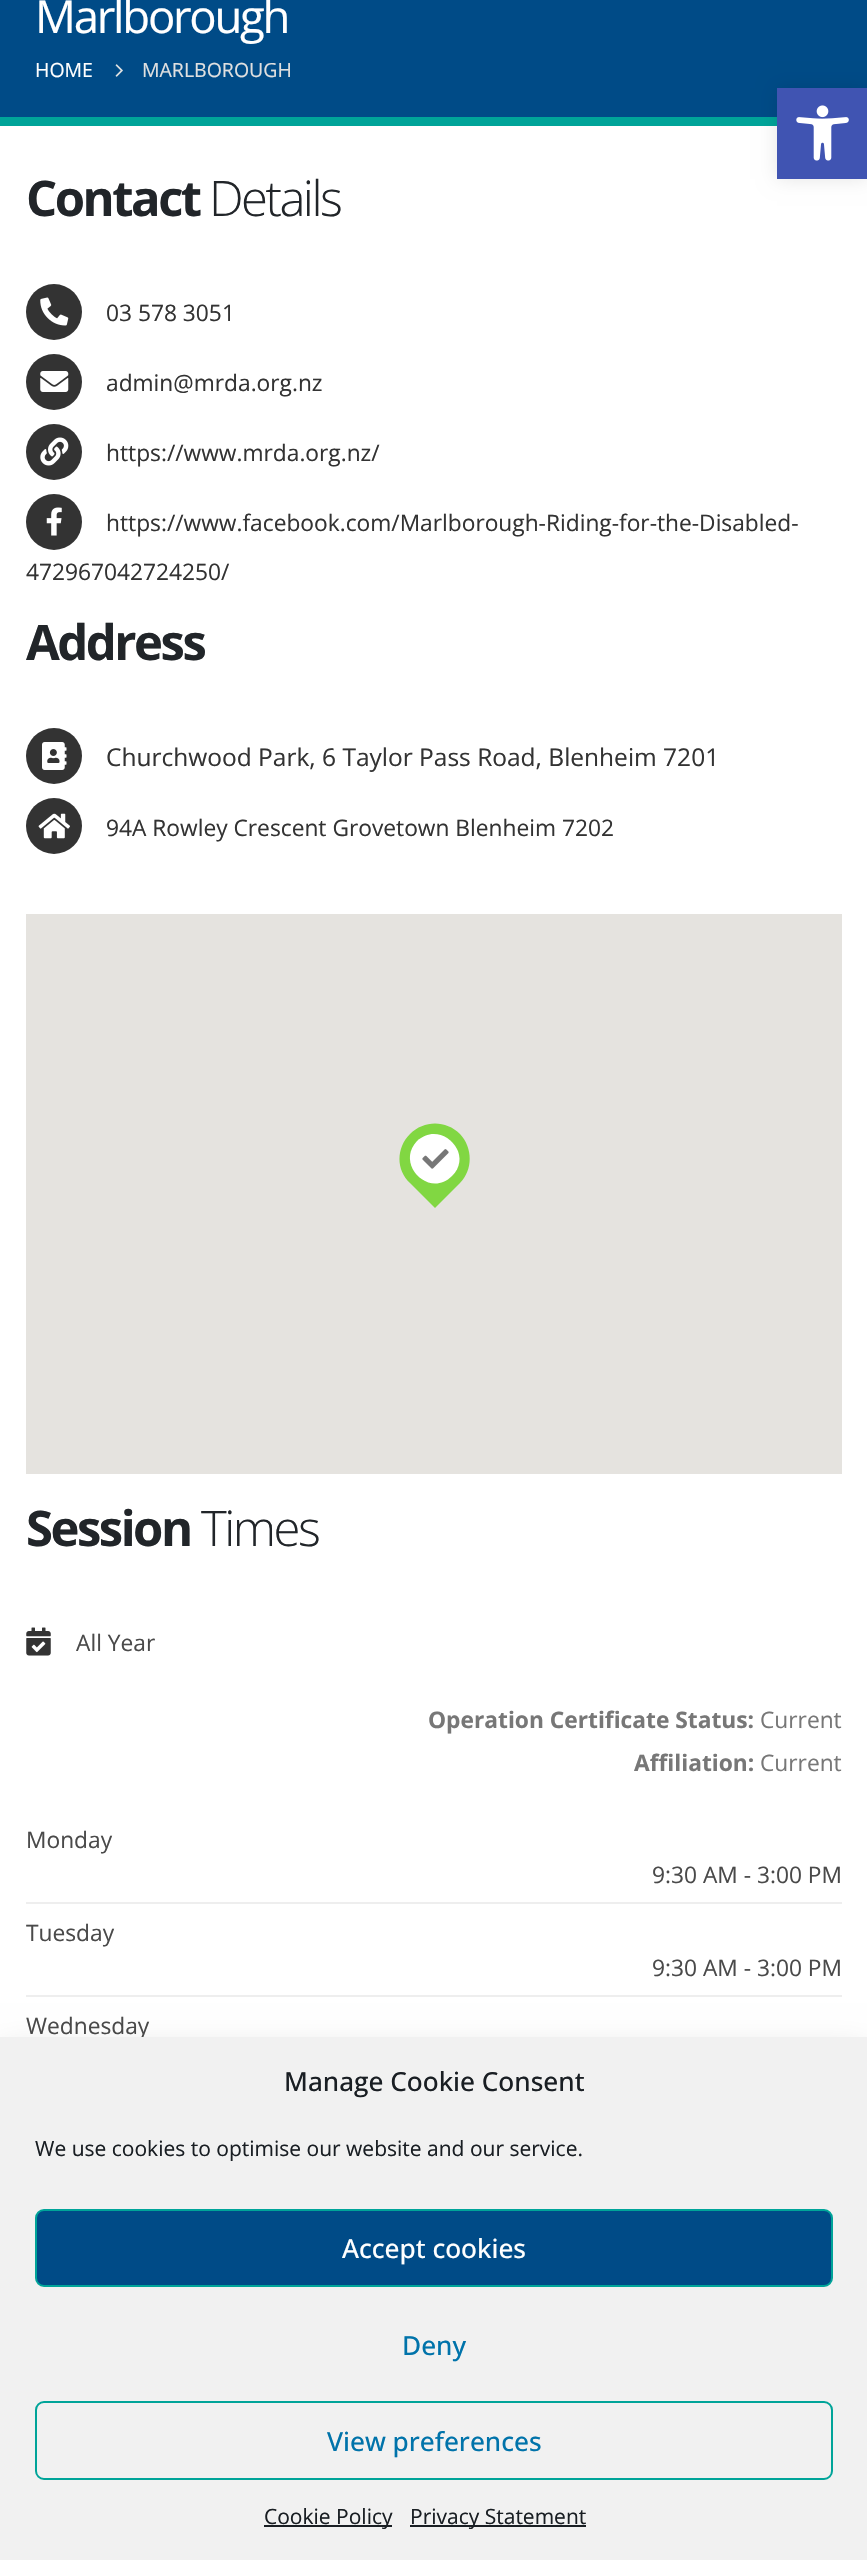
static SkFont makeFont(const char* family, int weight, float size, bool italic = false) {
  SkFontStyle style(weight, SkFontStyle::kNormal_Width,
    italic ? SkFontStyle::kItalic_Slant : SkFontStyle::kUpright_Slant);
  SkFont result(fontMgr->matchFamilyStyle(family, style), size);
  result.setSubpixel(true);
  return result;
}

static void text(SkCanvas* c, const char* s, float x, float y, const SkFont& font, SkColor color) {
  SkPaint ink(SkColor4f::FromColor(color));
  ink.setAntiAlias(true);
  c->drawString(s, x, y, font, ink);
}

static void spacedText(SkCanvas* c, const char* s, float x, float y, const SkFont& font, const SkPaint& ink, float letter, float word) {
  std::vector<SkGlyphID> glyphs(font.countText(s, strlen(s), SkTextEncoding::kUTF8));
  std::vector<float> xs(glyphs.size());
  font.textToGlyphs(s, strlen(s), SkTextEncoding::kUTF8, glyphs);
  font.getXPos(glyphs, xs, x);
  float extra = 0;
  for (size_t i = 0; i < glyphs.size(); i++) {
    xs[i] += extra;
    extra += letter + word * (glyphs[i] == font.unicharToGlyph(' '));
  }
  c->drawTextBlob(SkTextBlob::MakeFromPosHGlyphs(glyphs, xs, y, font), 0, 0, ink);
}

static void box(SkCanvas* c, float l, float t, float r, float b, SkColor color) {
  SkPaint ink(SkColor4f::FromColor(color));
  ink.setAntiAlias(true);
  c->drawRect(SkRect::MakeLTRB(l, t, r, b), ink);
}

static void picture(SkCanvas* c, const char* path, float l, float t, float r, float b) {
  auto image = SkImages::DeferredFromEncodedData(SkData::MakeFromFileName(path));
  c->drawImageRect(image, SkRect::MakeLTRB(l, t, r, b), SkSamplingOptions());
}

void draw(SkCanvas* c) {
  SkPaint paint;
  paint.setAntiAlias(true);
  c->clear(0xffffffff);
  box(c, 0, 0, 867, 117, 0xff004b87);
  box(c, 0, 117, 777, 126, 0xff00a499);
  SkFont face1 = makeFont("Open Sans", 400, 45.5f);
  paint.setColor(0xffffffff);
  spacedText(c, "Marlborough", 35, 33, face1, paint, -2.25f, 0);
  SkFont face2 = makeFont("Open Sans", 400, 19.5f);
  text(c, "HOME", 35, 77, face2, 0xffffffff);
  picture(c, "img_01.png", 115, 64, 123, 77);
  text(c, "MARLBOROUGH", 142, 77, face2, 0xffe0e0e0);
  SkFont face3 = makeFont("Open Sans", 700, 49);
  paint.setColor(0xff212529);
  spacedText(c, "Contact", 26, 216, face3, paint, -2.5f, 0);
  SkFont face4 = makeFont("Open Sans", 300, 49);
  spacedText(c, "Details", 209, 216, face4, paint, -2.5f, 0);
  paint.setColor(0xff333333);
  c->drawCircle(54, 312, 28, paint);
  picture(c, "img_02.png", 40, 297, 69, 326);
  SkFont face5 = makeFont("Open Sans", 400, 22.75f);
  text(c, "03 578 3051", 106, 321, face5, 0xff333333);
  c->drawCircle(54, 382, 28, paint);
  picture(c, "img_03.png", 40, 371, 69, 392);
  text(c, "admin@mrda.org.nz", 106, 391, face5, 0xff333333);
  c->drawCircle(54, 452, 28, paint);
  picture(c, "img_04.png", 40, 437, 69, 466);
  text(c, "https://www.mrda.org.nz/", 106, 461, face5, 0xff333333);
  c->drawCircle(54, 522, 28, paint);
  picture(c, "img_05.png", 46, 507, 62, 536);
  text(c, "https://www.facebook.com/Marlborough-Riding-for-the-Disabled-", 106, 531, face5, 0xff333333);
  text(c, "472967042724250/", 26, 580, face5, 0xff333333);
  paint.setColor(0xff212529);
  spacedText(c, "Address", 26, 660, face3, paint, -2.5f, 0);
  paint.setColor(0xff333333);
  c->drawCircle(54, 756, 28, paint);
  picture(c, "img_06.png", 42, 742, 67, 770);
  SkFont face6 = makeFont("Open Sans", 400, 24.5f);
  text(c, "Churchwood Park, 6 Taylor Pass Road, Blenheim 7201", 106, 766, face6, 0xff333333);
  c->drawCircle(54, 826, 28, paint);
  picture(c, "img_07.png", 38, 813, 70, 839);
  text(c, "94A Rowley Crescent Grovetown Blenheim 7202", 106, 836, face5, 0xff333333);
  box(c, 26, 914, 842, 1474, 0xffe5e3df);
  paint.setColor(0xff81d742);
  c->drawPath(SkPathBuilder().moveTo(410, 1134).cubicTo(424, 1120, 446, 1120, 460, 1134).cubicTo(473, 1148, 473, 1170, 460, 1183).lineTo(435, 1208).lineTo(410, 1183).cubicTo(396, 1170, 396, 1148, 410, 1134).close().detach(), paint);
  paint.setColor(0xffffffff);
  c->drawPath(SkPathBuilder().moveTo(417, 1141).cubicTo(440, 1119, 475, 1153, 452, 1176).cubicTo(429, 1199, 395, 1164, 417, 1141).close().detach(), paint);
  picture(c, "img_08.png", 422, 1149, 449, 1169);
  paint.setColor(0xff212529);
  spacedText(c, "Session", 26, 1546, face3, paint, -2.5f, 0);
  spacedText(c, "Times", 201, 1546, face4, paint, -2.5f, 0);
  picture(c, "img_09.png", 26, 1627, 51, 1656);
  text(c, "All Year", 76, 1651, face5, 0xff4a4a4a);
  SkFont face7 = makeFont("Open Sans", 700, 22.75f);
  text(c, "Operation Certificate Status:", 428, 1728, face7, 0xff777777);
  text(c, "Current", 760, 1728, face5, 0xff777777);
  text(c, "Affiliation:", 634, 1771, face7, 0xff777777);
  text(c, "Current", 760, 1771, face5, 0xff777777);
  box(c, 26, 1902, 842, 1904, 0xffeeeeee);
  text(c, "Monday", 26, 1848, face5, 0xff4a4a4a);
  text(c, "9:30 AM - 3:00 PM", 652, 1883, face5, 0xff4a4a4a);
  box(c, 26, 1995, 842, 1997, 0xffeeeeee);
  text(c, "Tuesday", 26, 1941, face5, 0xff4a4a4a);
  text(c, "9:30 AM - 3:00 PM", 652, 1976, face5, 0xff4a4a4a);
  text(c, "Wednesday", 26, 2034, face5, 0xff4a4a4a);
  paint.setColor(0x1a000000);
  paint.setMaskFilter(SkMaskFilter::MakeBlur(kNormal_SkBlurStyle, 9));
  c->drawRect(SkRect::MakeLTRB(777, 88, 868, 179), paint);
  paint.setMaskFilter(nullptr);
  box(c, 777, 88, 867, 179, 0xff4054b2);
  picture(c, "img_10.png", 796, 105, 849, 161);
  paint.setColor(0x30000000);
  paint.setMaskFilter(SkMaskFilter::MakeBlur(kNormal_SkBlurStyle, 17.5f));
  c->drawRect(SkRect::MakeLTRB(0, 2055, 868, 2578), paint);
  paint.setMaskFilter(nullptr);
  box(c, 0, 2037, 867, 2560, 0xfff1f1f1);
  SkFont face8 = makeFont("Open Sans", 500, 26.25f);
  text(c, "Manage Cookie Consent", 284, 2091, face8, 0xff191e23);
  SkFont face9 = makeFont("Open Sans", 400, 21);
  text(c, "We use cookies to optimise our website and our service.", 35, 2156, face9, 0xff191e23);
  paint.setColor(0xff004b87);
  c->drawRoundRect(SkRect::MakeLTRB(36, 2210, 832, 2286), 8, 8, paint);
  paint.setStyle(SkPaint::kStroke_Style);
  paint.setStrokeWidth(2);
  paint.setColor(0xff00a499);
  c->drawRoundRect(SkRect::MakeLTRB(36, 2210, 832, 2286), 8, 8, paint);
  text(c, "Accept cookies", 342, 2258, face8, 0xffffffff);
  text(c, "Deny", 402, 2355, face8, 0xff0073aa);
  c->drawRoundRect(SkRect::MakeLTRB(36, 2402, 832, 2479), 8, 8, paint);
  text(c, "View preferences", 327, 2451, face8, 0xff0073aa);
  box(c, 264, 2525, 392, 2527, 0xff191e23);
  text(c, "Cookie Policy", 264, 2524, face9, 0xff191e23);
  box(c, 410, 2525, 586, 2527, 0xff191e23);
  text(c, "Privacy Statement", 410, 2524, face9, 0xff191e23);
}
